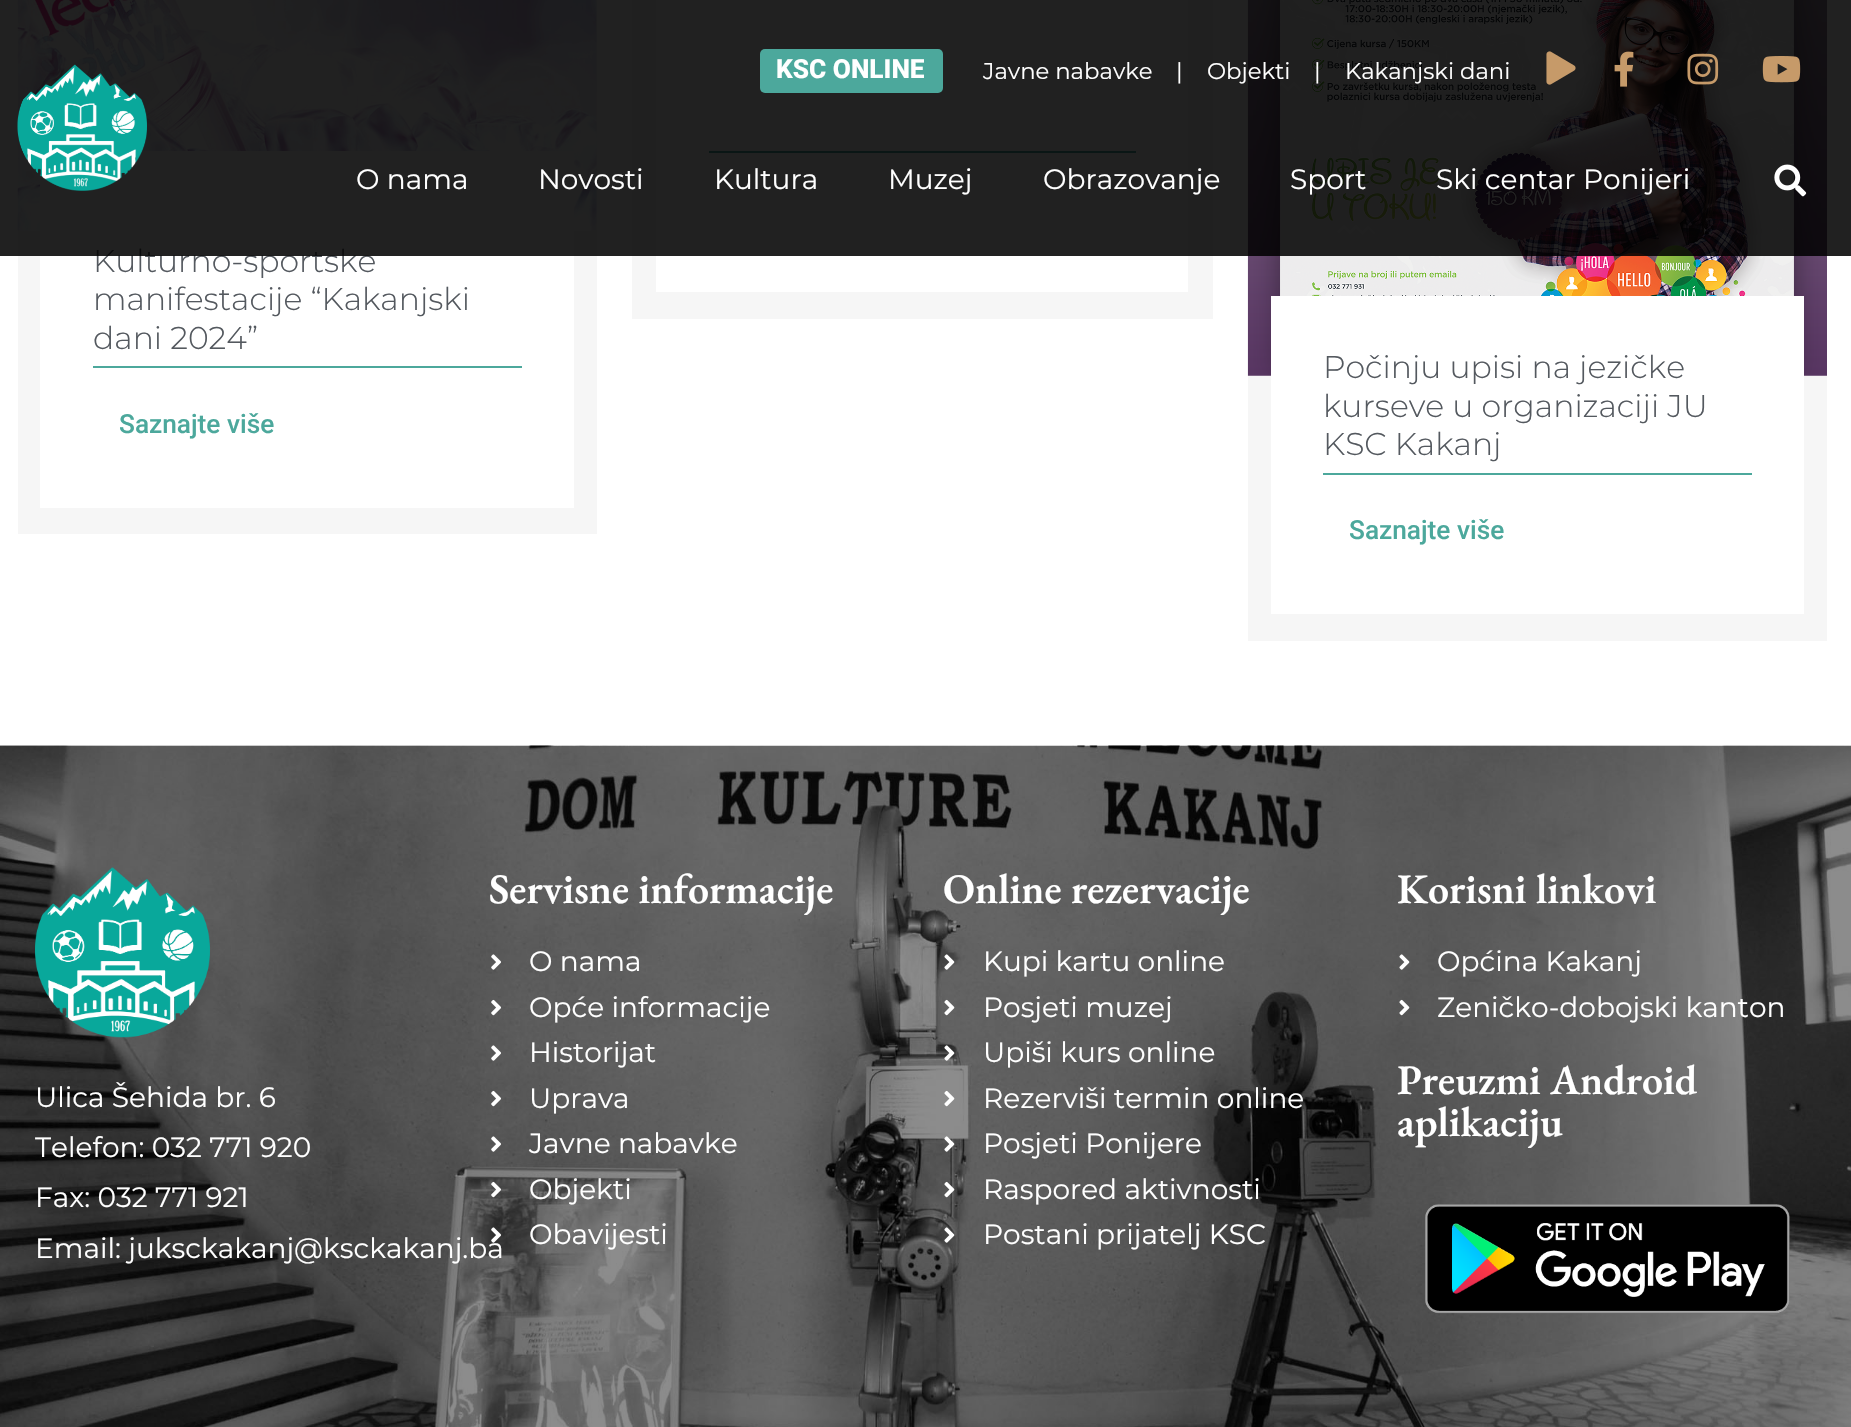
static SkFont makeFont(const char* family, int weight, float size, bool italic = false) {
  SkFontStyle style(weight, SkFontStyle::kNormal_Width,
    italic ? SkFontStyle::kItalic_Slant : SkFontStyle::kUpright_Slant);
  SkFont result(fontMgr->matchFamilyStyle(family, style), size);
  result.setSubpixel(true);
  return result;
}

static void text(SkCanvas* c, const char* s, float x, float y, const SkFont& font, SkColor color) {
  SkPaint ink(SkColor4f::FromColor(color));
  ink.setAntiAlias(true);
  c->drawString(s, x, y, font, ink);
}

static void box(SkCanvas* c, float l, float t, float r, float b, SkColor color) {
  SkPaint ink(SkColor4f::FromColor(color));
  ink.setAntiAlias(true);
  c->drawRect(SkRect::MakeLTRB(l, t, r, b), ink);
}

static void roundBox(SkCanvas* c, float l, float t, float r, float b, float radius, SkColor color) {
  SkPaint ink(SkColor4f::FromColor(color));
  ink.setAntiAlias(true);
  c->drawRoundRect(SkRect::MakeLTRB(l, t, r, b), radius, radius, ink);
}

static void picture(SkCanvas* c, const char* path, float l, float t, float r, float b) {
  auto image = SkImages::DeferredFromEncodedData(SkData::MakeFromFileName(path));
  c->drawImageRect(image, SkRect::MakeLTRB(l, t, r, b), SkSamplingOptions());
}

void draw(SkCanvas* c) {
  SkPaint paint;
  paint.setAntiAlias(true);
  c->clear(0xffffffff);
  box(c, 632, 0, 1213, 319, 0xfff6f6f6);
  box(c, 656, 0, 1188, 292, 0xffffffff);
  box(c, 709, 151, 1136, 153, 0xff4ca89c);
  box(c, 18, 0, 597, 534, 0xfff6f6f6);
  picture(c, "img_07.png", 17, 0, 597, 231);
  box(c, 40, 151, 574, 508, 0xffffffff);
  SkFont face1 = makeFont("Montserrat", 300, 31.5f);
  text(c, "Kulturno-sportske", 93, 272, face1, 0xff54595f);
  box(c, 1248, 375, 1827, 641, 0xfff6f6f6);
  picture(c, "img_08.png", 1247, 0, 1827, 376);
  box(c, 0, 0, 1851, 256, 0xde000000);
  picture(c, "img_01.png", 17, 64, 147, 191);
  roundBox(c, 760, 49, 943, 93, 5, 0xff4ca89c);
  SkFont face2 = makeFont("Roboto", 800, 26.25f);
  text(c, "KSC ONLINE", 776, 78, face2, 0xffffffff);
  SkFont face3 = makeFont("Montserrat", 400, 22.75f);
  text(c, "Javne nabavke", 983, 79, face3, 0xffffffff);
  text(c, "|", 1176, 79, face3, 0xffffffff);
  text(c, "Objekti", 1207, 79, face3, 0xffffffff);
  text(c, "|", 1314, 79, face3, 0xffffffff);
  text(c, "Kakanjski dani", 1345, 79, face3, 0xffffffff);
  picture(c, "img_02.png", 1546, 51, 1576, 85);
  picture(c, "img_03.png", 1614, 51, 1634, 87);
  picture(c, "img_04.png", 1687, 53, 1719, 85);
  picture(c, "img_05.png", 1762, 56, 1801, 83);
  SkFont face4 = makeFont("Montserrat", 400, 28);
  text(c, "O nama", 356, 189, face4, 0xffffffff);
  text(c, "Novosti", 538, 189, face4, 0xffffffff);
  text(c, "Kultura", 714, 189, face4, 0xffffffff);
  text(c, "Muzej", 888, 189, face4, 0xffffffff);
  text(c, "Obrazovanje", 1043, 189, face4, 0xffffffff);
  text(c, "Sport", 1290, 189, face4, 0xffffffff);
  text(c, "Ski centar Ponijeri", 1436, 189, face4, 0xffffffff);
  picture(c, "img_06.png", 1774, 164, 1807, 197);
  text(c, "manifestacije “Kakanjski", 93, 310, face1, 0xff54595f);
  text(c, "dani 2024”", 93, 349, face1, 0xff54595f);
  box(c, 93, 366, 522, 368, 0xff4ca89c);
  SkFont face5 = makeFont("Roboto", 500, 26.25f);
  text(c, "Saznajte više", 119, 433, face5, 0xff4ca89c);
  box(c, 1271, 296, 1804, 614, 0xffffffff);
  text(c, "Počinju upisi na jezičke", 1323, 378, face1, 0xff54595f);
  text(c, "kurseve u organizaciji JU", 1323, 417, face1, 0xff54595f);
  text(c, "KSC Kakanj", 1323, 455, face1, 0xff54595f);
  box(c, 1323, 473, 1752, 475, 0xff4ca89c);
  text(c, "Saznajte više", 1349, 539, face5, 0xff4ca89c);
  box(c, 0, 746, 1851, 1427, 0xff000000);
  picture(c, "img_09.png", 0, 745, 1851, 1427);
  SkFont face6 = makeFont("EB Garamond", 600, 42);
  text(c, "Servisne informacije", 489, 903, face6, 0xffffffff);
  picture(c, "img_10.png", 491, 954, 501, 970);
  text(c, "O nama", 529, 971, face4, 0xffffffff);
  picture(c, "img_11.png", 491, 999, 501, 1016);
  text(c, "Opće informacije", 529, 1017, face4, 0xffffffff);
  picture(c, "img_12.png", 491, 1045, 501, 1061);
  text(c, "Historijat", 529, 1062, face4, 0xffffffff);
  picture(c, "img_13.png", 491, 1090, 501, 1107);
  text(c, "Uprava", 529, 1108, face4, 0xffffffff);
  picture(c, "img_14.png", 491, 1136, 501, 1152);
  text(c, "Javne nabavke", 529, 1153, face4, 0xffffffff);
  picture(c, "img_15.png", 491, 1181, 501, 1198);
  text(c, "Objekti", 529, 1199, face4, 0xffffffff);
  text(c, "Email: juksckakanj@ksckakanj.ba", 35, 1258, face4, 0xffffffff);
  picture(c, "img_16.png", 491, 1227, 501, 1243);
  text(c, "Obavijesti", 529, 1244, face4, 0xffffffff);
  text(c, "Online rezervacije", 943, 903, face6, 0xffffffff);
  picture(c, "img_17.png", 944, 954, 955, 970);
  text(c, "Kupi kartu online", 983, 971, face4, 0xffffffff);
  picture(c, "img_18.png", 944, 999, 955, 1016);
  text(c, "Posjeti muzej", 983, 1017, face4, 0xffffffff);
  picture(c, "img_19.png", 944, 1045, 955, 1061);
  text(c, "Upiši kurs online", 983, 1062, face4, 0xffffffff);
  picture(c, "img_20.png", 944, 1090, 955, 1107);
  text(c, "Rezerviši termin online", 983, 1108, face4, 0xffffffff);
  picture(c, "img_21.png", 944, 1136, 955, 1152);
  text(c, "Posjeti Ponijere", 983, 1153, face4, 0xffffffff);
  picture(c, "img_22.png", 944, 1181, 955, 1198);
  text(c, "Raspored aktivnosti", 983, 1199, face4, 0xffffffff);
  picture(c, "img_23.png", 944, 1227, 955, 1243);
  text(c, "Postani prijatelj KSC", 983, 1244, face4, 0xffffffff);
  text(c, "Korisni linkovi", 1397, 903, face6, 0xffffffff);
  picture(c, "img_24.png", 1399, 954, 1410, 970);
  text(c, "Općina Kakanj", 1437, 971, face4, 0xffffffff);
  picture(c, "img_25.png", 1399, 999, 1410, 1016);
  text(c, "Zeničko-dobojski kanton", 1437, 1017, face4, 0xffffffff);
  text(c, "Preuzmi Android", 1397, 1094, face6, 0xffffffff);
  text(c, "aplikaciju", 1397, 1136, face6, 0xffffffff);
  picture(c, "img_26.png", 1425, 1204, 1790, 1314);
  picture(c, "img_27.png", 35, 867, 210, 1038);
  text(c, "Ulica Šehida br. 6", 35, 1107, face4, 0xffffffff);
  text(c, "Telefon: 032 771 920", 35, 1157, face4, 0xffffffff);
  text(c, "Fax: 032 771 921", 35, 1207, face4, 0xffffffff);
}
